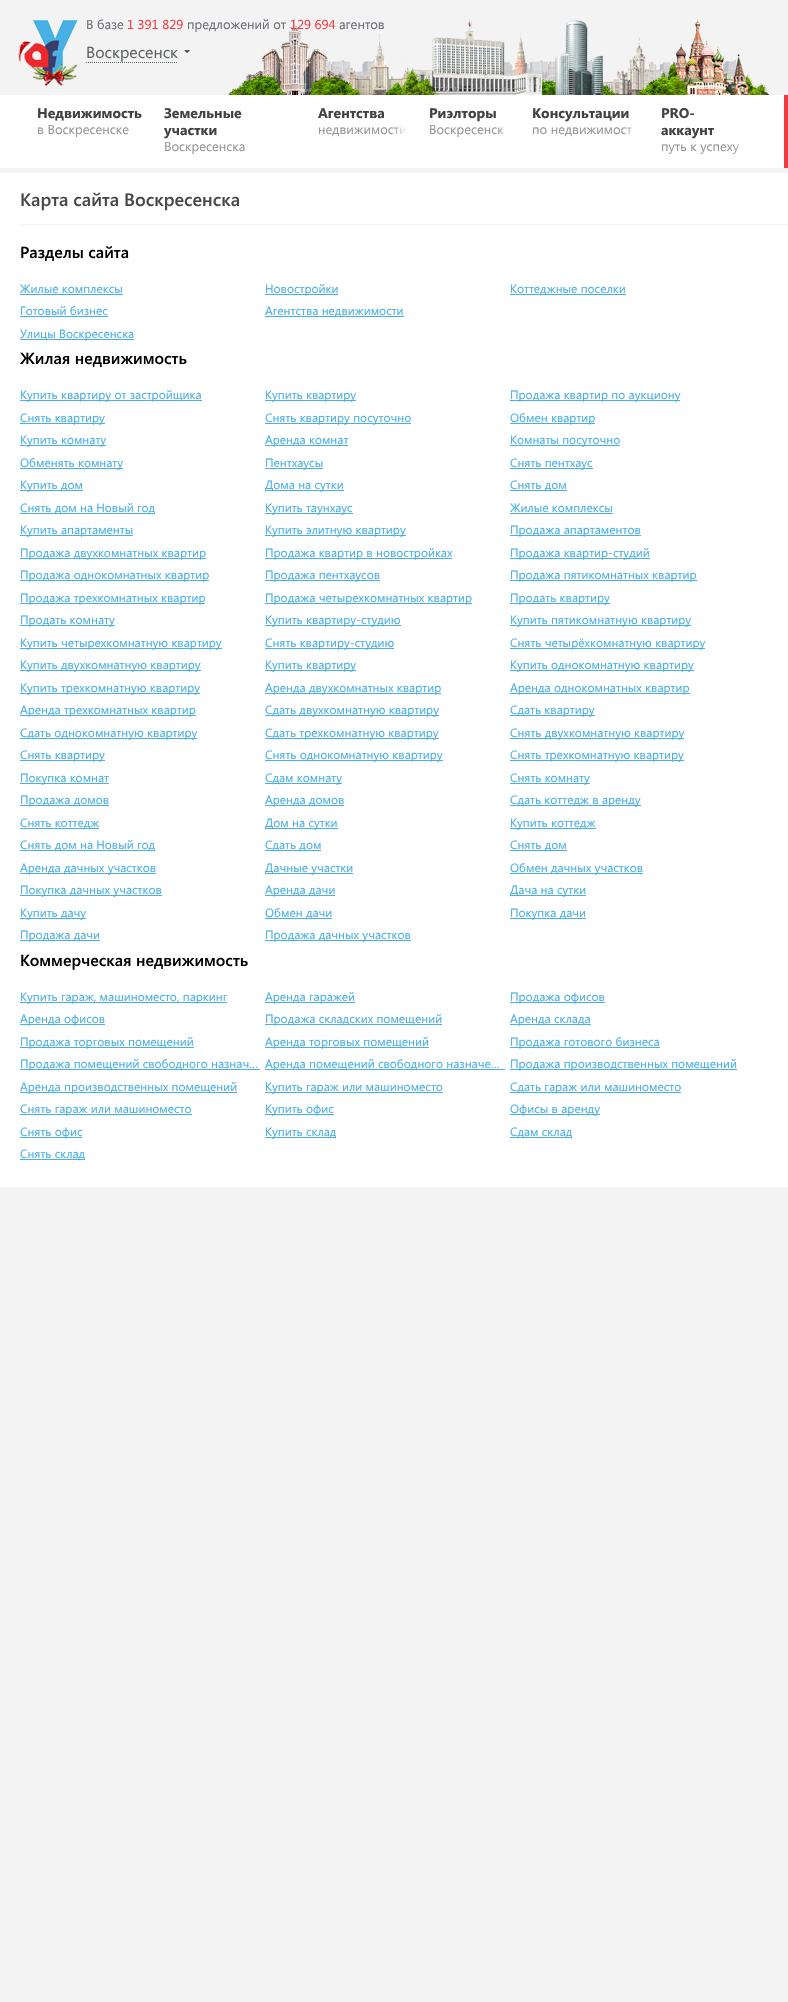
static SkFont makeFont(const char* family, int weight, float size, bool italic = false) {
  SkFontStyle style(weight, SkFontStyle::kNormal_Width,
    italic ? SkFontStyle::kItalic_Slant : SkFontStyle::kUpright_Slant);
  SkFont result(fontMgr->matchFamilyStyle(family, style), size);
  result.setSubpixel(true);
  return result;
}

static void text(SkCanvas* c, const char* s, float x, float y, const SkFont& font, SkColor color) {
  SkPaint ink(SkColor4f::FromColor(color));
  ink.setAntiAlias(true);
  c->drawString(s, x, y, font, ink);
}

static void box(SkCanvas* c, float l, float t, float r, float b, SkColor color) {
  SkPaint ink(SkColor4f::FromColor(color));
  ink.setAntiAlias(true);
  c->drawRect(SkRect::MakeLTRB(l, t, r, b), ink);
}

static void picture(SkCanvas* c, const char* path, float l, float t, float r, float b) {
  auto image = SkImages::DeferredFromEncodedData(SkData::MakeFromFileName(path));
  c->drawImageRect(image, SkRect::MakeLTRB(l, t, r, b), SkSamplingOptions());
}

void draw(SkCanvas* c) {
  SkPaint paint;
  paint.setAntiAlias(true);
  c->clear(0xfff3f3f3);
  picture(c, "img_01.png", 228, 18, 769, 95);
  picture(c, "img_02.png", 18, 20, 78, 86);
  SkFont face1 = makeFont("Segoe UI", 400, 13);
  text(c, "В базе", 86, 29, face1, 0xff6d6e76);
  text(c, "1 391 829", 127, 29, face1, 0xfff03c40);
  text(c, "предложений от", 187, 29, face1, 0xff6d6e76);
  text(c, "129 694", 290, 29, face1, 0xfff03c40);
  text(c, "агентов", 339, 29, face1, 0xff6d6e76);
  SkFont face2 = makeFont("Segoe UI", 400, 16);
  text(c, "Воскресенск", 86, 58, face2, 0xff5e6163);
  paint.setStyle(SkPaint::kStroke_Style);
  paint.setStrokeWidth(1);
  paint.setColor(0xff5e6163);
  paint.setPathEffect(SkDashPathEffect::Make({{1, 1}}, 0));
  c->drawPath(SkPathBuilder().moveTo(86, 62.5f).lineTo(178, 62.5f).detach(), paint);
  paint.setPathEffect(nullptr);
  picture(c, "img_03.png", 184, 50, 190, 53);
  box(c, 0, 95, 784, 168, 0xffffffff);
  SkFont face3 = makeFont("Segoe UI", 700, 14);
  text(c, "Недвижимость", 37, 118, face3, 0xff424242);
  text(c, "в Воскресенске", 37, 134, face1, 0xff969696);
  paint.setStyle(SkPaint::kFill_Style);
  {
    const SkColor colors[] = {0x00ffffff, 0xffffffff};
    const float stops[] = {0, 1};
    const SkPoint ends[] = {{126, 129}, {142, 129}};
    paint.setShader(SkGradientShader::MakeLinear(ends, colors, stops, 2, SkTileMode::kClamp));
    paint.setAlpha(255);
  }
  c->drawRect(SkRect::MakeLTRB(126, 128, 129, 134), paint);
  text(c, "Земельные", 164, 118, face3, 0xff424242);
  text(c, "участки", 164, 135, face3, 0xff424242);
  text(c, "Воскресенска", 164, 151, face1, 0xff969696);
  text(c, "Агентства", 318, 118, face3, 0xff424242);
  text(c, "недвижимости", 318, 134, face1, 0xff969696);
  {
    const SkColor colors[] = {0x00ffffff, 0xffffffff};
    const float stops[] = {0, 1};
    const SkPoint ends[] = {{393, 129}, {407, 129}};
    paint.setShader(SkGradientShader::MakeLinear(ends, colors, stops, 2, SkTileMode::kClamp));
    paint.setAlpha(255);
  }
  c->drawRect(SkRect::MakeLTRB(394, 127, 406, 134), paint);
  text(c, "Риэлторы", 429, 118, face3, 0xff424242);
  text(c, "Воскресенск", 429, 134, face1, 0xff969696);
  {
    const SkColor colors[] = {0x00ffffff, 0xffffffff};
    const float stops[] = {0, 1};
    const SkPoint ends[] = {{498, 129}, {510, 129}};
    paint.setShader(SkGradientShader::MakeLinear(ends, colors, stops, 2, SkTileMode::kClamp));
    paint.setAlpha(255);
  }
  c->drawRect(SkRect::MakeLTRB(498, 127, 504, 134), paint);
  text(c, "Консультации", 532, 118, face3, 0xff424242);
  text(c, "по недвижимост", 532, 134, face1, 0xff969696);
  {
    const SkColor colors[] = {0x00ffffff, 0xffffffff};
    const float stops[] = {0, 1};
    const SkPoint ends[] = {{623, 129}, {639, 129}};
    paint.setShader(SkGradientShader::MakeLinear(ends, colors, stops, 2, SkTileMode::kClamp));
    paint.setAlpha(255);
  }
  c->drawRect(SkRect::MakeLTRB(623, 127, 632, 134), paint);
  text(c, "PRO-", 661, 118, face3, 0xff424242);
  text(c, "аккаунт", 661, 135, face3, 0xff424242);
  text(c, "путь к успеху", 661, 151, face1, 0xff969696);
  {
    const SkColor colors[] = {0x00ffffff, 0xffffffff};
    const float stops[] = {0, 1};
    const SkPoint ends[] = {{734, 146}, {747, 146}};
    paint.setShader(SkGradientShader::MakeLinear(ends, colors, stops, 2, SkTileMode::kClamp));
    paint.setAlpha(255);
  }
  c->drawRect(SkRect::MakeLTRB(734, 144, 740, 154), paint);
  box(c, 784, 95, 788, 168, 0xfff03c40);
  box(c, 0, 173, 788, 1187, 0xffffffff);
  box(c, 20, 224, 788, 225, 0xfff3f3f3);
  SkFont face4 = makeFont("Segoe UI", 600, 18);
  text(c, "Карта сайта Воскресенска", 20, 206, face4, 0xff494848);
  SkFont face5 = makeFont("Segoe UI", 600, 16);
  text(c, "Разделы сайта", 20, 258, face5, 0xff000000);
  SkFont face6 = makeFont("Segoe UI", 400, 12);
  text(c, "Жилые комплексы", 20, 293, face6, 0xff49afe4);
  box(c, 20, 294, 123, 295, 0xff49afe4);
  box(c, 265, 294, 338, 295, 0xff49afe4);
  text(c, "Новостройки", 265, 293, face6, 0xff49afe4);
  box(c, 510, 294, 626, 295, 0xff49afe4);
  text(c, "Коттеджные поселки", 510, 293, face6, 0xff49afe4);
  text(c, "Готовый бизнес", 20, 315, face6, 0xff49afe4);
  box(c, 20, 316, 108, 317, 0xff49afe4);
  box(c, 265, 316, 404, 317, 0xff49afe4);
  text(c, "Агентства недвижимости", 265, 315, face6, 0xff49afe4);
  box(c, 20, 339, 134, 340, 0xff49afe4);
  text(c, "Улицы Воскресенска", 20, 338, face6, 0xff49afe4);
  text(c, "Жилая недвижимость", 20, 364, face5, 0xff000000);
  box(c, 20, 400, 202, 401, 0xff49afe4);
  text(c, "Купить квартиру от застройщика", 20, 399, face6, 0xff49afe4);
  box(c, 265, 400, 356, 401, 0xff49afe4);
  text(c, "Купить квартиру", 265, 399, face6, 0xff49afe4);
  box(c, 510, 400, 680, 401, 0xff49afe4);
  text(c, "Продажа квартир по аукциону", 510, 399, face6, 0xff49afe4);
  box(c, 20, 423, 105, 424, 0xff49afe4);
  text(c, "Снять квартиру", 20, 422, face6, 0xff49afe4);
  box(c, 265, 423, 411, 424, 0xff49afe4);
  text(c, "Снять квартиру посуточно", 265, 422, face6, 0xff49afe4);
  box(c, 510, 423, 595, 424, 0xff49afe4);
  text(c, "Обмен квартир", 510, 422, face6, 0xff49afe4);
  box(c, 20, 445, 106, 446, 0xff49afe4);
  text(c, "Купить комнату", 20, 444, face6, 0xff49afe4);
  box(c, 265, 445, 348, 446, 0xff49afe4);
  text(c, "Аренда комнат", 265, 444, face6, 0xff49afe4);
  box(c, 510, 445, 620, 446, 0xff49afe4);
  text(c, "Комнаты посуточно", 510, 444, face6, 0xff49afe4);
  box(c, 20, 468, 123, 469, 0xff49afe4);
  text(c, "Обменять комнату", 20, 467, face6, 0xff49afe4);
  box(c, 265, 468, 323, 469, 0xff49afe4);
  text(c, "Пентхаусы", 265, 467, face6, 0xff49afe4);
  box(c, 510, 468, 593, 469, 0xff49afe4);
  text(c, "Снять пентхаус", 510, 467, face6, 0xff49afe4);
  box(c, 20, 490, 83, 491, 0xff49afe4);
  text(c, "Купить дом", 20, 489, face6, 0xff49afe4);
  box(c, 265, 490, 344, 491, 0xff49afe4);
  text(c, "Дома на сутки", 265, 489, face6, 0xff49afe4);
  box(c, 510, 490, 567, 491, 0xff49afe4);
  text(c, "Снять дом", 510, 489, face6, 0xff49afe4);
  box(c, 20, 513, 155, 514, 0xff49afe4);
  text(c, "Снять дом на Новый год", 20, 512, face6, 0xff49afe4);
  box(c, 265, 513, 353, 514, 0xff49afe4);
  text(c, "Купить таунхаус", 265, 512, face6, 0xff49afe4);
  text(c, "Жилые комплексы", 510, 512, face6, 0xff49afe4);
  box(c, 510, 513, 613, 514, 0xff49afe4);
  box(c, 20, 535, 133, 536, 0xff49afe4);
  text(c, "Купить апартаменты", 20, 534, face6, 0xff49afe4);
  box(c, 265, 535, 406, 536, 0xff49afe4);
  text(c, "Купить элитную квартиру", 265, 534, face6, 0xff49afe4);
  box(c, 510, 535, 641, 536, 0xff49afe4);
  text(c, "Продажа апартаментов", 510, 534, face6, 0xff49afe4);
  box(c, 20, 558, 206, 559, 0xff49afe4);
  text(c, "Продажа двухкомнатных квартир", 20, 557, face6, 0xff49afe4);
  box(c, 265, 558, 452, 559, 0xff49afe4);
  text(c, "Продажа квартир в новостройках", 265, 557, face6, 0xff49afe4);
  box(c, 510, 558, 650, 559, 0xff49afe4);
  text(c, "Продажа квартир-студий", 510, 557, face6, 0xff49afe4);
  box(c, 20, 580, 209, 581, 0xff49afe4);
  text(c, "Продажа однокомнатных квартир", 20, 579, face6, 0xff49afe4);
  box(c, 265, 580, 380, 581, 0xff49afe4);
  text(c, "Продажа пентхаусов", 265, 579, face6, 0xff49afe4);
  box(c, 510, 580, 697, 581, 0xff49afe4);
  text(c, "Продажа пятикомнатных квартир", 510, 579, face6, 0xff49afe4);
  box(c, 20, 603, 205, 604, 0xff49afe4);
  text(c, "Продажа трехкомнатных квартир", 20, 602, face6, 0xff49afe4);
  box(c, 265, 603, 472, 604, 0xff49afe4);
  text(c, "Продажа четырехкомнатных квартир", 265, 602, face6, 0xff49afe4);
  box(c, 510, 603, 610, 604, 0xff49afe4);
  text(c, "Продать квартиру", 510, 602, face6, 0xff49afe4);
  box(c, 20, 625, 115, 626, 0xff49afe4);
  text(c, "Продать комнату", 20, 624, face6, 0xff49afe4);
  box(c, 265, 625, 401, 626, 0xff49afe4);
  text(c, "Купить квартиру-студию", 265, 624, face6, 0xff49afe4);
  box(c, 510, 625, 691, 626, 0xff49afe4);
  text(c, "Купить пятикомнатную квартиру", 510, 624, face6, 0xff49afe4);
  box(c, 20, 648, 222, 649, 0xff49afe4);
  text(c, "Купить четырехкомнатную квартиру", 20, 647, face6, 0xff49afe4);
  box(c, 265, 648, 394, 649, 0xff49afe4);
  text(c, "Снять квартиру-студию", 265, 647, face6, 0xff49afe4);
  box(c, 510, 648, 705, 649, 0xff49afe4);
  text(c, "Снять четырёхкомнатную квартиру", 510, 647, face6, 0xff49afe4);
  box(c, 20, 670, 201, 671, 0xff49afe4);
  text(c, "Купить двухкомнатную квартиру", 20, 669, face6, 0xff49afe4);
  box(c, 265, 670, 356, 671, 0xff49afe4);
  text(c, "Купить квартиру", 265, 669, face6, 0xff49afe4);
  box(c, 510, 670, 694, 671, 0xff49afe4);
  text(c, "Купить однокомнатную квартиру", 510, 669, face6, 0xff49afe4);
  box(c, 20, 693, 200, 694, 0xff49afe4);
  text(c, "Купить трехкомнатную квартиру", 20, 692, face6, 0xff49afe4);
  box(c, 265, 693, 441, 694, 0xff49afe4);
  text(c, "Аренда двухкомнатных квартир", 265, 692, face6, 0xff49afe4);
  box(c, 510, 693, 690, 694, 0xff49afe4);
  text(c, "Аренда однокомнатных квартир", 510, 692, face6, 0xff49afe4);
  box(c, 20, 715, 196, 716, 0xff49afe4);
  text(c, "Аренда трехкомнатных квартир", 20, 714, face6, 0xff49afe4);
  box(c, 265, 715, 439, 716, 0xff49afe4);
  text(c, "Сдать двухкомнатную квартиру", 265, 714, face6, 0xff49afe4);
  box(c, 510, 715, 595, 716, 0xff49afe4);
  text(c, "Сдать квартиру", 510, 714, face6, 0xff49afe4);
  box(c, 20, 738, 197, 739, 0xff49afe4);
  text(c, "Сдать однокомнатную квартиру", 20, 737, face6, 0xff49afe4);
  box(c, 265, 738, 439, 739, 0xff49afe4);
  text(c, "Сдать трехкомнатную квартиру", 265, 737, face6, 0xff49afe4);
  box(c, 510, 738, 684, 739, 0xff49afe4);
  text(c, "Снять двухкомнатную квартиру", 510, 737, face6, 0xff49afe4);
  box(c, 20, 760, 105, 761, 0xff49afe4);
  text(c, "Снять квартиру", 20, 759, face6, 0xff49afe4);
  box(c, 265, 760, 443, 761, 0xff49afe4);
  text(c, "Снять однокомнатную квартиру", 265, 759, face6, 0xff49afe4);
  box(c, 510, 760, 684, 761, 0xff49afe4);
  text(c, "Снять трехкомнатную квартиру", 510, 759, face6, 0xff49afe4);
  box(c, 20, 783, 109, 784, 0xff49afe4);
  text(c, "Покупка комнат", 20, 782, face6, 0xff49afe4);
  box(c, 265, 783, 342, 784, 0xff49afe4);
  text(c, "Сдам комнату", 265, 782, face6, 0xff49afe4);
  box(c, 510, 783, 590, 784, 0xff49afe4);
  text(c, "Снять комнату", 510, 782, face6, 0xff49afe4);
  box(c, 20, 805, 109, 806, 0xff49afe4);
  text(c, "Продажа домов", 20, 804, face6, 0xff49afe4);
  box(c, 265, 805, 344, 806, 0xff49afe4);
  text(c, "Аренда домов", 265, 804, face6, 0xff49afe4);
  box(c, 510, 805, 641, 806, 0xff49afe4);
  text(c, "Сдать коттедж в аренду", 510, 804, face6, 0xff49afe4);
  box(c, 20, 828, 99, 829, 0xff49afe4);
  text(c, "Снять коттедж", 20, 827, face6, 0xff49afe4);
  box(c, 265, 828, 338, 829, 0xff49afe4);
  text(c, "Дом на сутки", 265, 827, face6, 0xff49afe4);
  box(c, 510, 828, 596, 829, 0xff49afe4);
  text(c, "Купить коттедж", 510, 827, face6, 0xff49afe4);
  box(c, 20, 850, 155, 851, 0xff49afe4);
  text(c, "Снять дом на Новый год", 20, 849, face6, 0xff49afe4);
  box(c, 265, 850, 321, 851, 0xff49afe4);
  text(c, "Сдать дом", 265, 849, face6, 0xff49afe4);
  box(c, 510, 850, 567, 851, 0xff49afe4);
  text(c, "Снять дом", 510, 849, face6, 0xff49afe4);
  box(c, 20, 873, 156, 874, 0xff49afe4);
  text(c, "Аренда дачных участков", 20, 872, face6, 0xff49afe4);
  box(c, 265, 873, 353, 874, 0xff49afe4);
  text(c, "Дачные участки", 265, 872, face6, 0xff49afe4);
  box(c, 510, 873, 643, 874, 0xff49afe4);
  text(c, "Обмен дачных участков", 510, 872, face6, 0xff49afe4);
  box(c, 20, 895, 162, 896, 0xff49afe4);
  text(c, "Покупка дачных участков", 20, 894, face6, 0xff49afe4);
  box(c, 265, 895, 335, 896, 0xff49afe4);
  text(c, "Аренда дачи", 265, 894, face6, 0xff49afe4);
  box(c, 510, 895, 586, 896, 0xff49afe4);
  text(c, "Дача на сутки", 510, 894, face6, 0xff49afe4);
  box(c, 20, 918, 86, 919, 0xff49afe4);
  text(c, "Купить дачу", 20, 917, face6, 0xff49afe4);
  box(c, 265, 918, 332, 919, 0xff49afe4);
  text(c, "Обмен дачи", 265, 917, face6, 0xff49afe4);
  box(c, 510, 918, 586, 919, 0xff49afe4);
  text(c, "Покупка дачи", 510, 917, face6, 0xff49afe4);
  box(c, 20, 940, 100, 941, 0xff49afe4);
  text(c, "Продажа дачи", 20, 939, face6, 0xff49afe4);
  box(c, 265, 940, 411, 941, 0xff49afe4);
  text(c, "Продажа дачных участков", 265, 939, face6, 0xff49afe4);
  text(c, "Коммерческая недвижимость", 20, 966, face5, 0xff000000);
  box(c, 20, 1002, 227, 1003, 0xff49afe4);
  text(c, "Купить гараж, машиноместо, паркинг", 20, 1001, face6, 0xff49afe4);
  box(c, 265, 1002, 355, 1003, 0xff49afe4);
  text(c, "Аренда гаражей", 265, 1001, face6, 0xff49afe4);
  box(c, 510, 1002, 605, 1003, 0xff49afe4);
  text(c, "Продажа офисов", 510, 1001, face6, 0xff49afe4);
  box(c, 20, 1024, 105, 1025, 0xff49afe4);
  text(c, "Аренда офисов", 20, 1023, face6, 0xff49afe4);
  box(c, 265, 1024, 442, 1025, 0xff49afe4);
  text(c, "Продажа складских помещений", 265, 1023, face6, 0xff49afe4);
  box(c, 510, 1024, 591, 1025, 0xff49afe4);
  text(c, "Аренда склада", 510, 1023, face6, 0xff49afe4);
  box(c, 20, 1047, 194, 1048, 0xff49afe4);
  text(c, "Продажа торговых помещений", 20, 1046, face6, 0xff49afe4);
  box(c, 265, 1047, 429, 1048, 0xff49afe4);
  text(c, "Аренда торговых помещений", 265, 1046, face6, 0xff49afe4);
  box(c, 510, 1047, 660, 1048, 0xff49afe4);
  text(c, "Продажа готового бизнеса", 510, 1046, face6, 0xff49afe4);
  box(c, 20, 1069, 260, 1070, 0xff49afe4);
  text(c, "Продажа помещений свободного назнач…", 20, 1068, face6, 0xff49afe4);
  box(c, 265, 1069, 505, 1070, 0xff49afe4);
  text(c, "Аренда помещений свободного назначе…", 265, 1068, face6, 0xff49afe4);
  box(c, 510, 1069, 737, 1070, 0xff49afe4);
  text(c, "Продажа производственных помещений", 510, 1068, face6, 0xff49afe4);
  box(c, 20, 1092, 237, 1093, 0xff49afe4);
  text(c, "Аренда производственных помещений", 20, 1091, face6, 0xff49afe4);
  box(c, 265, 1092, 443, 1093, 0xff49afe4);
  text(c, "Купить гараж или машиноместо", 265, 1091, face6, 0xff49afe4);
  box(c, 510, 1092, 681, 1093, 0xff49afe4);
  text(c, "Сдать гараж или машиноместо", 510, 1091, face6, 0xff49afe4);
  box(c, 20, 1114, 192, 1115, 0xff49afe4);
  text(c, "Снять гараж или машиноместо", 20, 1113, face6, 0xff49afe4);
  box(c, 265, 1114, 334, 1115, 0xff49afe4);
  text(c, "Купить офис", 265, 1113, face6, 0xff49afe4);
  box(c, 510, 1114, 600, 1115, 0xff49afe4);
  text(c, "Офисы в аренду", 510, 1113, face6, 0xff49afe4);
  box(c, 20, 1137, 82, 1138, 0xff49afe4);
  text(c, "Снять офис", 20, 1136, face6, 0xff49afe4);
  box(c, 265, 1137, 336, 1138, 0xff49afe4);
  text(c, "Купить склад", 265, 1136, face6, 0xff49afe4);
  box(c, 510, 1137, 572, 1138, 0xff49afe4);
  text(c, "Сдам склад", 510, 1136, face6, 0xff49afe4);
  box(c, 20, 1159, 85, 1160, 0xff49afe4);
  text(c, "Снять склад", 20, 1158, face6, 0xff49afe4);
}
